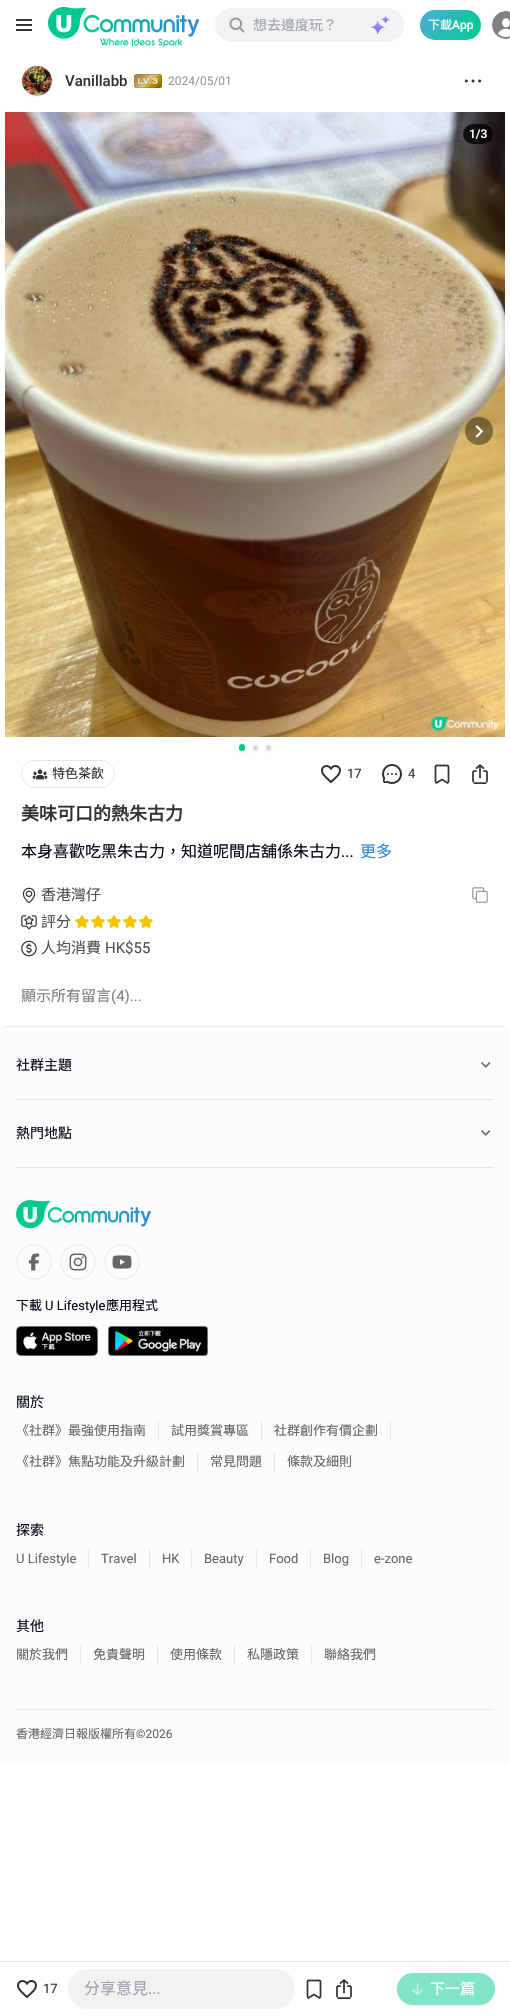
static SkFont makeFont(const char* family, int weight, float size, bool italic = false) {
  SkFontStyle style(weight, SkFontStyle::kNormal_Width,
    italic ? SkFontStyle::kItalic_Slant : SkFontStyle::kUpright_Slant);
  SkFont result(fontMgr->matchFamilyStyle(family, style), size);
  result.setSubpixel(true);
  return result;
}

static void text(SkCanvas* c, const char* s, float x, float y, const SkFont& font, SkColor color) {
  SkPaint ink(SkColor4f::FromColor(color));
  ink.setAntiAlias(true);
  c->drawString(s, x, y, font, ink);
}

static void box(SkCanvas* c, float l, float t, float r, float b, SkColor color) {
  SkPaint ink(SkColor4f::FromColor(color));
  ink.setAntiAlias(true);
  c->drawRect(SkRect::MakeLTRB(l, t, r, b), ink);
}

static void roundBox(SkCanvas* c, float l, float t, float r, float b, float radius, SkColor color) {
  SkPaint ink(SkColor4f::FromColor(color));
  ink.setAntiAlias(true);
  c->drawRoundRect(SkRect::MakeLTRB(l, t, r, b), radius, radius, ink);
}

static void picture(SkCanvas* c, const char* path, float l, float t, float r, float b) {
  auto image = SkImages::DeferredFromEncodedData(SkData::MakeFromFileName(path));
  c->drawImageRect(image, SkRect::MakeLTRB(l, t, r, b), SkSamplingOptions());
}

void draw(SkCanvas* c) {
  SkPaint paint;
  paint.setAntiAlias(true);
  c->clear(0xffffffff);
  picture(c, "img_01.png", 16, 19, 32, 31);
  picture(c, "img_02.png", 48, 7, 199, 47);
  roundBox(c, 215, 8, 404, 42, 17, 0xfff2f2f2);
  picture(c, "img_03.png", 229, 17, 245, 33);
  SkFont face1 = makeFont("Noto Sans CJK HK", 400, 14);
  text(c, "想去邊度玩？", 253, 30, face1, 0xff9ca3af);
  picture(c, "img_04.png", 370, 15, 390, 35);
  {
    const SkColor colors[] = {0xff4badd6, 0xff00cc8f};
    const float stops[] = {0, 1};
    const SkPoint ends[] = {{420, 11}, {481, 39}};
    paint.setShader(SkGradientShader::MakeLinear(ends, colors, stops, 2, SkTileMode::kClamp));
    paint.setAlpha(255);
  }
  c->drawRoundRect(SkRect::MakeLTRB(420, 10, 481, 40), 15, 15, paint);
  SkFont face2 = makeFont("Noto Sans CJK HK", 400, 12);
  text(c, "下載", 428, 29, face2, 0xffffffff);
  SkFont face3 = makeFont("Roboto", 500, 12);
  text(c, "App", 452, 29, face3, 0xffffffff);
  paint.setStyle(SkPaint::kStroke_Style);
  paint.setStrokeWidth(1);
  paint.setShader(nullptr);
  paint.setColor(0xfff2f2f2);
  c->drawCircle(506, 25, 14.5f, paint);
  picture(c, "img_05.png", 492, 11, 510, 39);
  box(c, 5, 1026, 505, 1027, 0xffebebeb);
  c->drawCircle(37, 81, 15.5f, paint);
  picture(c, "img_06.png", 22, 66, 52, 96);
  SkFont face4 = makeFont("Roboto", 500, 15);
  text(c, "Vanillabb", 65, 86, face4, 0xff333333);
  picture(c, "img_07.png", 134, 74, 162, 88);
  SkFont face5 = makeFont("Roboto", 400, 12);
  text(c, "2024/05/01", 168, 85, face5, 0xff999999);
  picture(c, "img_08.png", 464, 79, 482, 83);
  picture(c, "img_09.png", 5, 112, 505, 737);
  roundBox(c, 463, 124, 493, 144, 10, 0xcc000000);
  text(c, "1/3", 469, 138, face3, 0xffffffff);
  paint.setStyle(SkPaint::kFill_Style);
  paint.setColor(0x66000000);
  c->drawCircle(479, 431, 14, paint);
  picture(c, "img_10.png", 475, 425, 484, 438);
  paint.setColor(0x1a000000);
  paint.setMaskFilter(SkMaskFilter::MakeBlur(kNormal_SkBlurStyle, 1));
  c->drawRoundRect(SkRect::MakeLTRB(240, 747, 244, 751), 2, 2, paint);
  paint.setMaskFilter(nullptr);
  paint.setMaskFilter(SkMaskFilter::MakeBlur(kNormal_SkBlurStyle, 2));
  c->drawRoundRect(SkRect::MakeLTRB(239, 746, 245, 752), 3, 3, paint);
  paint.setMaskFilter(nullptr);
  roundBox(c, 239, 744, 245, 751, 3, 0xff00c891);
  paint.setMaskFilter(SkMaskFilter::MakeBlur(kNormal_SkBlurStyle, 1));
  c->drawRoundRect(SkRect::MakeLTRB(254, 747, 257, 750), 1.5f, 1.5f, paint);
  paint.setMaskFilter(nullptr);
  paint.setMaskFilter(SkMaskFilter::MakeBlur(kNormal_SkBlurStyle, 1.5f));
  c->drawRoundRect(SkRect::MakeLTRB(253, 746, 258, 751), 2.5f, 2.5f, paint);
  paint.setMaskFilter(nullptr);
  paint.setColor(0xffd8d8d8);
  c->drawCircle(255.5f, 747.5f, 2.5f, paint);
  paint.setColor(0x1a000000);
  paint.setMaskFilter(SkMaskFilter::MakeBlur(kNormal_SkBlurStyle, 1));
  c->drawRoundRect(SkRect::MakeLTRB(267, 747, 270, 750), 1.5f, 1.5f, paint);
  paint.setMaskFilter(nullptr);
  paint.setMaskFilter(SkMaskFilter::MakeBlur(kNormal_SkBlurStyle, 1.5f));
  c->drawRoundRect(SkRect::MakeLTRB(266, 746, 271, 751), 2.5f, 2.5f, paint);
  paint.setMaskFilter(nullptr);
  paint.setColor(0xffd8d8d8);
  c->drawCircle(268.5f, 747.5f, 2.5f, paint);
  paint.setStyle(SkPaint::kStroke_Style);
  paint.setColor(0xffe6e6e6);
  c->drawRoundRect(SkRect::MakeLTRB(21.5f, 760.5f, 114.5f, 787.5f), 13.5f, 13.5f, paint);
  picture(c, "img_11.png", 32, 769, 48, 780);
  SkFont face6 = makeFont("Noto Sans CJK HK", 400, 13);
  text(c, "特色茶飲", 52, 778, face6, 0xff333333);
  picture(c, "img_12.png", 321, 765, 341, 784);
  SkFont face7 = makeFont("Roboto", 400, 13);
  text(c, "17", 347, 778, face7, 0xff333333);
  picture(c, "img_13.png", 382, 764, 402, 784);
  text(c, "4", 408, 778, face7, 0xff333333);
  picture(c, "img_14.png", 434, 764, 450, 784);
  picture(c, "img_15.png", 472, 764, 488, 784);
  SkFont face8 = makeFont("Noto Sans CJK HK", 700, 18);
  text(c, "美味可口的熱朱古力", 21, 820, face8, 0xff333333);
  SkFont face9 = makeFont("Noto Sans CJK HK", 400, 16);
  text(c, "本身喜歡吃黑朱古力，知道呢間店舖係朱古力", 21, 857, face9, 0xff020817);
  SkFont face10 = makeFont("Roboto", 400, 16);
  text(c, "...", 341, 857, face10, 0xff020817);
  text(c, "更多", 360, 857, face9, 0xff3087d9);
  picture(c, "img_16.png", 22, 887, 36, 904);
  SkFont face11 = makeFont("Noto Sans CJK HK", 400, 15);
  text(c, "香港灣仔", 41, 900, face11, 0xff505050);
  picture(c, "img_17.png", 472, 887, 488, 903);
  picture(c, "img_18.png", 21, 915, 37, 930);
  text(c, "評分", 41, 927, face11, 0xff505050);
  picture(c, "img_19.png", 75, 914, 89, 928);
  picture(c, "img_19.png", 91, 914, 105, 928);
  picture(c, "img_19.png", 107, 914, 121, 928);
  picture(c, "img_19.png", 123, 914, 137, 928);
  picture(c, "img_19.png", 139, 914, 153, 928);
  picture(c, "img_20.png", 21, 940, 37, 957);
  text(c, "人均消費", 41, 953, face11, 0xff505050);
  SkFont face12 = makeFont("Roboto", 400, 15);
  text(c, "HK$55", 105, 953, face12, 0xff505050);
  text(c, "顯示所有留言", 21, 1001, face11, 0xff808080);
  text(c, "(4)...", 111, 1001, face12, 0xff808080);
  box(c, 0, 1027, 510, 1763, 0xfffcfcfc);
  text(c, "社群主題", 16, 1070, face1, 0xff020817);
  picture(c, "img_21.png", 481, 1062, 491, 1068);
  box(c, 16, 1099, 494, 1100, 0xffe2e8f0);
  text(c, "熱門地點", 16, 1138, face1, 0xff020817);
  picture(c, "img_21.png", 481, 1130, 491, 1136);
  box(c, 16, 1167, 494, 1168, 0xffe2e8f0);
  picture(c, "img_22.png", 16, 1200, 151, 1228);
  picture(c, "img_23.png", 16, 1244, 52, 1280);
  picture(c, "img_24.png", 60, 1244, 96, 1280);
  picture(c, "img_25.png", 104, 1244, 140, 1280);
  text(c, "下載", 16, 1310, face6, 0xff020817);
  text(c, "U Lifestyle", 45, 1310, face7, 0xff020817);
  text(c, "應用程式", 106, 1310, face6, 0xff020817);
  picture(c, "img_26.png", 16, 1326, 98, 1356);
  picture(c, "img_27.png", 108, 1326, 208, 1356);
  text(c, "關於", 16, 1407, face1, 0xff020817);
  box(c, 158, 1421, 159, 1440, 0xffe2e8f0);
  text(c, "《社群》最強使用指南", 16, 1435, face6, 0xff666666);
  box(c, 261, 1421, 262, 1440, 0xffe2e8f0);
  text(c, "試用獎賞專區", 171, 1435, face6, 0xff666666);
  box(c, 390, 1421, 391, 1440, 0xffe2e8f0);
  text(c, "社群創作有價企劃", 274, 1435, face6, 0xff666666);
  box(c, 197, 1452, 198, 1472, 0xffe2e8f0);
  text(c, "《社群》焦點功能及升級計劃", 16, 1466, face6, 0xff666666);
  box(c, 274, 1452, 275, 1472, 0xffe2e8f0);
  text(c, "常見問題", 210, 1466, face6, 0xff666666);
  text(c, "條款及細則", 287, 1466, face6, 0xff666666);
  text(c, "探索", 16, 1535, face1, 0xff020817);
  box(c, 88, 1549, 89, 1568, 0xffe2e8f0);
  text(c, "U Lifestyle", 16, 1563, face7, 0xff666666);
  box(c, 149, 1549, 150, 1568, 0xffe2e8f0);
  text(c, "Travel", 101, 1563, face7, 0xff666666);
  box(c, 191, 1549, 192, 1568, 0xffe2e8f0);
  text(c, "HK", 162, 1563, face7, 0xff666666);
  box(c, 256, 1549, 257, 1568, 0xffe2e8f0);
  text(c, "Beauty", 204, 1563, face7, 0xff666666);
  box(c, 310, 1549, 311, 1568, 0xffe2e8f0);
  text(c, "Food", 269, 1563, face7, 0xff666666);
  box(c, 361, 1549, 362, 1568, 0xffe2e8f0);
  text(c, "Blog", 323, 1563, face7, 0xff666666);
  text(c, "e-zone", 374, 1563, face7, 0xff666666);
  text(c, "其他", 16, 1631, face1, 0xff020817);
  box(c, 80, 1645, 81, 1665, 0xffe2e8f0);
  text(c, "關於我們", 16, 1659, face6, 0xff666666);
  box(c, 157, 1645, 158, 1665, 0xffe2e8f0);
  text(c, "免責聲明", 93, 1659, face6, 0xff666666);
  box(c, 234, 1645, 235, 1665, 0xffe2e8f0);
  text(c, "使用條款", 170, 1659, face6, 0xff666666);
  box(c, 311, 1645, 312, 1665, 0xffe2e8f0);
  text(c, "私隱政策", 247, 1659, face6, 0xff666666);
  text(c, "聯絡我們", 324, 1659, face6, 0xff666666);
  box(c, 16, 1709, 494, 1710, 0xffe2e8f0);
  text(c, "香港經濟日報版權所有", 16, 1738, face2, 0xff666666);
  text(c, "©2026", 136, 1738, face5, 0xff666666);
  box(c, 0, 1961, 510, 1962, 0xffe7e7e7);
  picture(c, "img_12.png", 17, 1980, 37, 1999);
  text(c, "17", 43, 1993, face7, 0xff333333);
  roundBox(c, 68, 1969, 295, 2009, 20, 0xfff2f2f2);
  text(c, "分享意見", 84, 1994, face9, 0xff9ca3af);
  text(c, "...", 148, 1994, face10, 0xff9ca3af);
  picture(c, "img_14.png", 306, 1979, 322, 1999);
  picture(c, "img_15.png", 336, 1979, 352, 1999);
  paint.setStyle(SkPaint::kFill_Style);
  paint.setColor(0x1a808080);
  paint.setMaskFilter(SkMaskFilter::MakeBlur(kNormal_SkBlurStyle, 1));
  c->drawRoundRect(SkRect::MakeLTRB(398, 1975, 494, 2005), 15, 15, paint);
  paint.setMaskFilter(nullptr);
  paint.setMaskFilter(SkMaskFilter::MakeBlur(kNormal_SkBlurStyle, 1.5f));
  c->drawRoundRect(SkRect::MakeLTRB(397, 1974, 495, 2006), 16, 16, paint);
  paint.setMaskFilter(nullptr);
  roundBox(c, 397, 1973, 495, 2005, 16, 0xff80e4c8);
  picture(c, "img_28.png", 412, 1983, 423, 1995);
  text(c, "下一篇", 430, 1994, face11, 0xffffffff);
}
